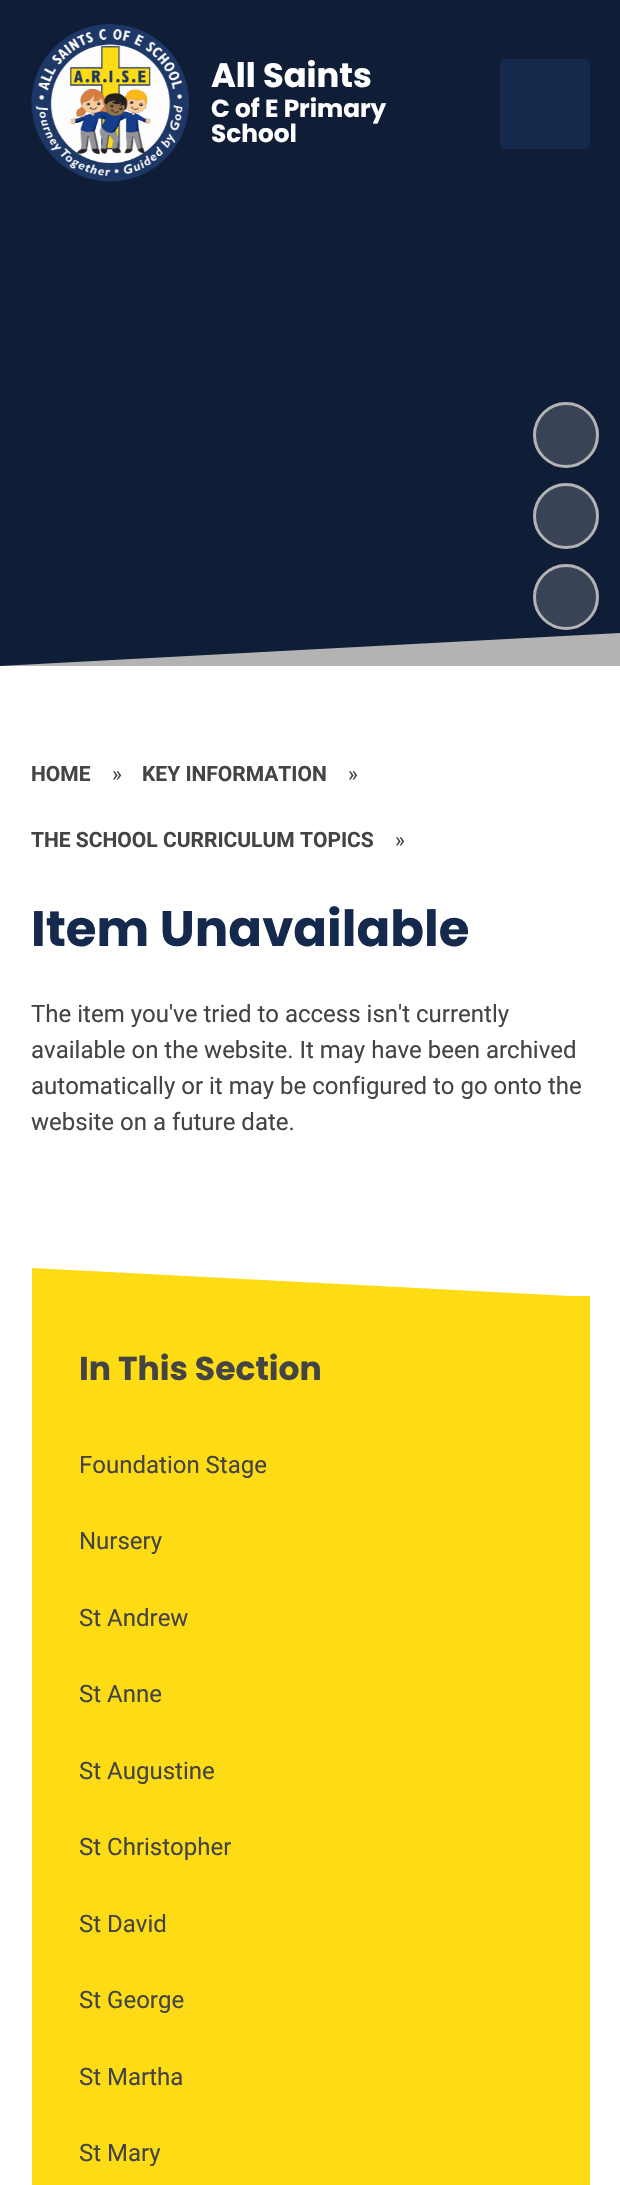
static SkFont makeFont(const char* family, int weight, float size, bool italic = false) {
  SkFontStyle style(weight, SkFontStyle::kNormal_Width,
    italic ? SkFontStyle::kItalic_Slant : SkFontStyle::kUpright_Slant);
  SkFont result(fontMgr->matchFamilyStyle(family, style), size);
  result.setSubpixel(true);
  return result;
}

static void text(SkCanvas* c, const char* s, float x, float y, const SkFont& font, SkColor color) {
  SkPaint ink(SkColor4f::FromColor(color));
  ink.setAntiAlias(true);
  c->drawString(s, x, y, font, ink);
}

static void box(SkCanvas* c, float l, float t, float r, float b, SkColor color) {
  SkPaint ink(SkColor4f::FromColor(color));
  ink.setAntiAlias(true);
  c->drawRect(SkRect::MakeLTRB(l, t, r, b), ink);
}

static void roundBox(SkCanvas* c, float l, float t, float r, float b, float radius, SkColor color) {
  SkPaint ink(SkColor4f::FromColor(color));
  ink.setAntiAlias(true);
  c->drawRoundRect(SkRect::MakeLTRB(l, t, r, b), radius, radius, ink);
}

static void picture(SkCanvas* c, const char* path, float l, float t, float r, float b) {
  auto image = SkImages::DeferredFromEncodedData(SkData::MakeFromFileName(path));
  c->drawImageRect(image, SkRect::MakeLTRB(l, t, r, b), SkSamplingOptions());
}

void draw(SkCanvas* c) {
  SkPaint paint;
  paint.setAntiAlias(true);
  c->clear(0xffffffff);
  box(c, 0, 0, 620, 666, 0xff0f1d36);
  paint.setColor(0xff384355);
  c->drawCircle(566, 435, 31.5f, paint);
  paint.setStyle(SkPaint::kStroke_Style);
  paint.setStrokeWidth(3);
  paint.setColor(0xffb3b3b3);
  c->drawCircle(566, 435, 31.5f, paint);
  paint.setStyle(SkPaint::kFill_Style);
  paint.setColor(0xff384355);
  c->drawCircle(566, 516, 31.5f, paint);
  paint.setStyle(SkPaint::kStroke_Style);
  paint.setColor(0xffb3b3b3);
  c->drawCircle(566, 516, 31.5f, paint);
  paint.setStyle(SkPaint::kFill_Style);
  paint.setColor(0xff384355);
  c->drawCircle(566, 597, 31.5f, paint);
  paint.setStyle(SkPaint::kStroke_Style);
  paint.setColor(0xffb3b3b3);
  c->drawCircle(566, 597, 31.5f, paint);
  c->save();
  c->clipRect(SkRect::MakeLTRB(0, 633, 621, 666));
  paint.setStyle(SkPaint::kFill_Style);
  c->drawPath(SkPathBuilder().moveTo(0, 666).lineTo(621, 633).lineTo(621, 668).lineTo(0, 668).close().detach(), paint);
  c->restore();
  picture(c, "img_01.png", 31, 24, 189, 182);
  SkFont face1 = makeFont("Poppins", 700, 33.75f);
  text(c, "All Saints", 211, 87, face1, 0xffffffff);
  SkFont face2 = makeFont("Poppins", 700, 24.75f);
  text(c, "C of E Primary", 211, 117, face2, 0xffffffff);
  text(c, "School", 211, 142, face2, 0xffffffff);
  roundBox(c, 500, 59, 590, 149, 6, 0xff15294d);
  SkFont face3 = makeFont("Roboto", 700, 21);
  text(c, "HOME", 31, 781, face3, 0xff444444);
  SkFont face4 = makeFont("Roboto", 400, 21);
  text(c, "»", 112, 781, face4, 0xff444444);
  text(c, "KEY INFORMATION", 142, 781, face3, 0xff444444);
  text(c, "»", 348, 781, face4, 0xff444444);
  text(c, "THE SCHOOL CURRICULUM TOPICS", 31, 847, face3, 0xff444444);
  text(c, "»", 395, 847, face4, 0xff444444);
  SkFont face5 = makeFont("Poppins", 700, 49.75f);
  text(c, "Item Unavailable", 31, 946, face5, 0xff15294d);
  SkFont face6 = makeFont("Roboto", 400, 24);
  text(c, "The item you've tried to access isn't currently", 31, 1022, face6, 0xff444444);
  text(c, "available on the website. It may have been archived", 31, 1058, face6, 0xff444444);
  text(c, "automatically or it may be configured to go onto the", 31, 1094, face6, 0xff444444);
  text(c, "website on a future date.", 31, 1130, face6, 0xff444444);
  paint.setColor(0xfffddc15);
  c->drawPath(SkPathBuilder().moveTo(590, 1297).lineTo(32, 1268).lineTo(32, 1299).lineTo(590, 1299).close().detach(), paint);
  box(c, 32, 1296, 590, 2185, 0xfffddc15);
  SkFont face7 = makeFont("Poppins", 700, 33);
  text(c, "In This Section", 79, 1380, face7, 0xff444444);
  text(c, "Foundation Stage", 79, 1473, face6, 0xff444444);
  text(c, "Nursery", 79, 1549, face6, 0xff444444);
  text(c, "St Andrew", 79, 1626, face6, 0xff444444);
  text(c, "St Anne", 79, 1702, face6, 0xff444444);
  text(c, "St Augustine", 79, 1779, face6, 0xff444444);
  text(c, "St Christopher", 79, 1855, face6, 0xff444444);
  text(c, "St David", 79, 1932, face6, 0xff444444);
  text(c, "St George", 79, 2008, face6, 0xff444444);
  text(c, "St Martha", 79, 2085, face6, 0xff444444);
  text(c, "St Mary", 79, 2161, face6, 0xff444444);
}
